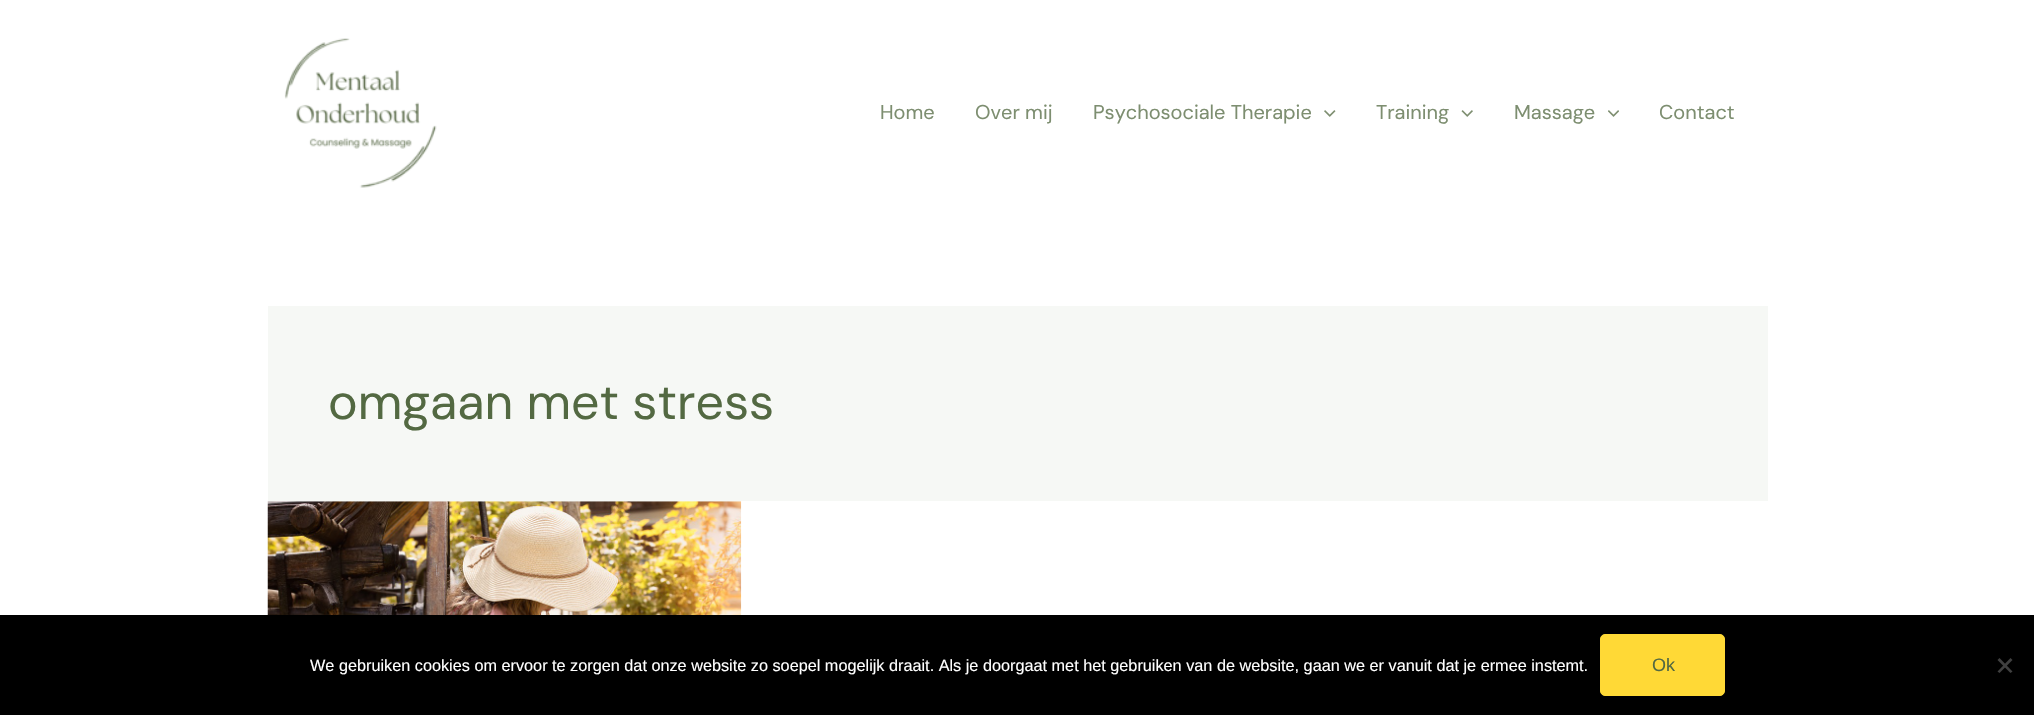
static SkFont makeFont(const char* family, int weight, float size, bool italic = false) {
  SkFontStyle style(weight, SkFontStyle::kNormal_Width,
    italic ? SkFontStyle::kItalic_Slant : SkFontStyle::kUpright_Slant);
  SkFont result(fontMgr->matchFamilyStyle(family, style), size);
  result.setSubpixel(true);
  return result;
}

static void text(SkCanvas* c, const char* s, float x, float y, const SkFont& font, SkColor color) {
  SkPaint ink(SkColor4f::FromColor(color));
  ink.setAntiAlias(true);
  c->drawString(s, x, y, font, ink);
}

static void box(SkCanvas* c, float l, float t, float r, float b, SkColor color) {
  SkPaint ink(SkColor4f::FromColor(color));
  ink.setAntiAlias(true);
  c->drawRect(SkRect::MakeLTRB(l, t, r, b), ink);
}

static void picture(SkCanvas* c, const char* path, float l, float t, float r, float b) {
  auto image = SkImages::DeferredFromEncodedData(SkData::MakeFromFileName(path));
  c->drawImageRect(image, SkRect::MakeLTRB(l, t, r, b), SkSamplingOptions());
}

void draw(SkCanvas* c) {
  SkPaint paint;
  paint.setAntiAlias(true);
  c->clear(0xffffffff);
  picture(c, "img_01.png", 284, 38, 437, 188);
  SkFont face1 = makeFont("DM Sans", 400, 20);
  text(c, "Home", 880, 119, face1, 0xff7d8e70);
  text(c, "Over mij", 975, 119, face1, 0xff7d8e70);
  text(c, "Psychosociale Therapie", 1093, 119, face1, 0xff7d8e70);
  picture(c, "img_02.png", 1324, 110, 1336, 117);
  text(c, "Training", 1376, 119, face1, 0xff7d8e70);
  picture(c, "img_03.png", 1461, 110, 1473, 117);
  text(c, "Massage", 1514, 119, face1, 0xff7d8e70);
  picture(c, "img_04.png", 1608, 110, 1619, 117);
  text(c, "Contact", 1659, 119, face1, 0xff7d8e70);
  box(c, 268, 306, 1768, 501, 0xfff6f8f5);
  SkFont face2 = makeFont("DM Sans", 400, 50);
  text(c, "omgaan met stress", 328, 419, face2, 0xff536942);
  box(c, 268, 501, 741, 502, 0xfff6f8f5);
  picture(c, "img_05.png", 267, 501, 742, 615);
  box(c, 0, 615, 2034, 715, 0xff000000);
  SkFont face3 = makeFont("Liberation Sans", 400, 16.25f);
  text(c, "We gebruiken cookies om ervoor te zorgen dat onze website zo soepel mogelijk draait. Als je doorgaat met het gebruiken van de website, gaan we er vanuit dat je ermee instemt.", 310, 671, face3, 0xffffffff);
  paint.setColor(0xffffd936);
  c->drawRoundRect(SkRect::MakeLTRB(1600.5f, 634.5f, 1724.5f, 695.5f), 4.5f, 4.5f, paint);
  paint.setStyle(SkPaint::kStroke_Style);
  paint.setStrokeWidth(1);
  c->drawRoundRect(SkRect::MakeLTRB(1600.5f, 634.5f, 1724.5f, 695.5f), 4.5f, 4.5f, paint);
  SkFont face4 = makeFont("Liberation Sans", 400, 18);
  text(c, "Ok", 1652, 671, face4, 0xff536942);
  paint.setStyle(SkPaint::kFill_Style);
  paint.setColor(0xff404040);
  c->drawPath(SkPathBuilder().moveTo(2010.5f, 658).lineTo(2012.5f, 660).lineTo(1999.5f, 673).lineTo(1997.5f, 671.5f).close().detach(), paint);
  c->drawPath(SkPathBuilder().moveTo(1997.5f, 660).lineTo(1999.5f, 658).lineTo(2012.5f, 671.5f).lineTo(2010.5f, 673).close().detach(), paint);
}
